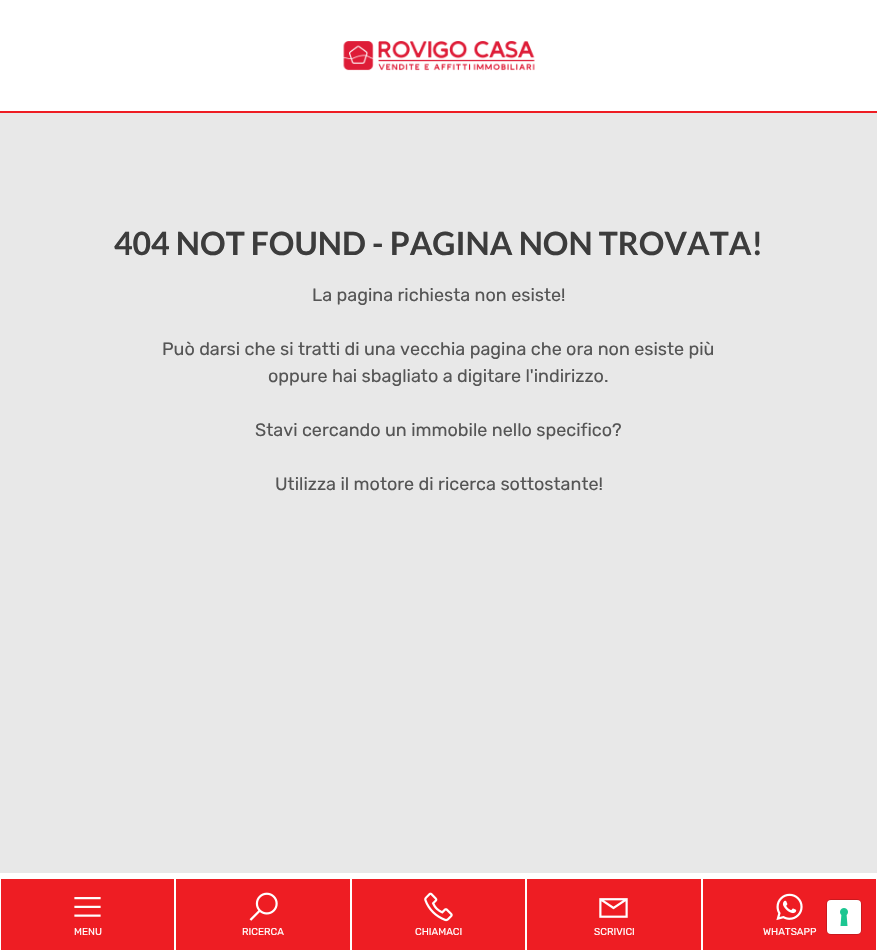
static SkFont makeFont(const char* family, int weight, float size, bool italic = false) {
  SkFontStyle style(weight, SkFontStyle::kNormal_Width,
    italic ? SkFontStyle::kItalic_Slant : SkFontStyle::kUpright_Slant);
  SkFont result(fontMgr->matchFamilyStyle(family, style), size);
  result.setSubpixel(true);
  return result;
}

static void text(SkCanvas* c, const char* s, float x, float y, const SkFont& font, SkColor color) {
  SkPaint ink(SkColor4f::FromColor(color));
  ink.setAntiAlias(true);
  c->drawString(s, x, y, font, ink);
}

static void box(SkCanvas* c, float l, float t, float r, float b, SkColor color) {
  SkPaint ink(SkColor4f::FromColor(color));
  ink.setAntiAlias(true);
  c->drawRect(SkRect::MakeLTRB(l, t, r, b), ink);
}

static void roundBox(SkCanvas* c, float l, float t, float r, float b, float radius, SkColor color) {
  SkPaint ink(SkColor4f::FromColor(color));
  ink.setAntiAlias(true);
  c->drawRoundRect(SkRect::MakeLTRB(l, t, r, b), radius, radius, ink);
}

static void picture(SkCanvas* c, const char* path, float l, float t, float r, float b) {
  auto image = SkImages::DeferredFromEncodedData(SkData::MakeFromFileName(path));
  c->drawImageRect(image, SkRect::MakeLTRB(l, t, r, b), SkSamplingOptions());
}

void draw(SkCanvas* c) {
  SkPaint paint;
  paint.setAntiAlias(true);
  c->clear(0xffe8e8e8);
  box(c, 0, 0, 877, 111, 0xffffffff);
  box(c, 0, 111, 877, 113, 0xffee1d23);
  picture(c, "img_01.png", 343, 41, 535, 71);
  SkFont face1 = makeFont("Lato", 700, 32);
  text(c, "404 NOT FOUND - PAGINA NON TROVATA!", 114, 255, face1, 0xff3c3c3c);
  SkFont face2 = makeFont("Rubik", 400, 18);
  text(c, "La pagina richiesta non esiste!", 312, 301, face2, 0xff555555);
  text(c, "Può darsi che si tratti di una vecchia pagina che ora non esiste più", 162, 355, face2, 0xff555555);
  text(c, "oppure hai sbagliato a digitare l'indirizzo.", 268, 382, face2, 0xff555555);
  text(c, "Stavi cercando un immobile nello specifico?", 255, 436, face2, 0xff555555);
  text(c, "Utilizza il motore di ricerca sottostante!", 275, 490, face2, 0xff555555);
  box(c, 0, 873, 877, 878, 0xffffffff);
  box(c, 1, 879, 876, 950, 0xffee1d23);
  box(c, 0, 878, 877, 879, 0xffffffff);
  box(c, 174, 878, 176, 950, 0xffffffff);
  box(c, 0, 878, 1, 950, 0xffffffff);
  picture(c, "img_02.png", 74, 897, 101, 917);
  SkFont face3 = makeFont("Rubik", 400, 10);
  text(c, "MENU", 74, 935, face3, 0xffffffff);
  box(c, 350, 878, 352, 950, 0xffffffff);
  picture(c, "img_03.png", 249, 892, 278, 921);
  text(c, "RICERCA", 242, 935, face3, 0xffffffff);
  box(c, 525, 878, 527, 950, 0xffffffff);
  picture(c, "img_04.png", 424, 892, 453, 922);
  text(c, "CHIAMACI", 415, 935, face3, 0xffffffff);
  box(c, 701, 878, 703, 950, 0xffffffff);
  picture(c, "img_05.png", 599, 898, 628, 918);
  text(c, "SCRIVICI", 594, 935, face3, 0xffffffff);
  box(c, 876, 878, 877, 950, 0xffffffff);
  picture(c, "img_06.png", 776, 893, 803, 921);
  text(c, "WHATSAPP", 763, 935, face3, 0xffffffff);
  paint.setStyle(SkPaint::kStroke_Style);
  paint.setStrokeWidth(1);
  paint.setColor(0xffca191e);
  c->drawRoundRect(SkRect::MakeLTRB(826.5f, 899.5f, 861.5f, 934.5f), 4.5f, 4.5f, paint);
  roundBox(c, 827, 900, 861, 934, 4, 0xffffffff);
  picture(c, "img_07.png", 840, 908, 848, 926);
}
